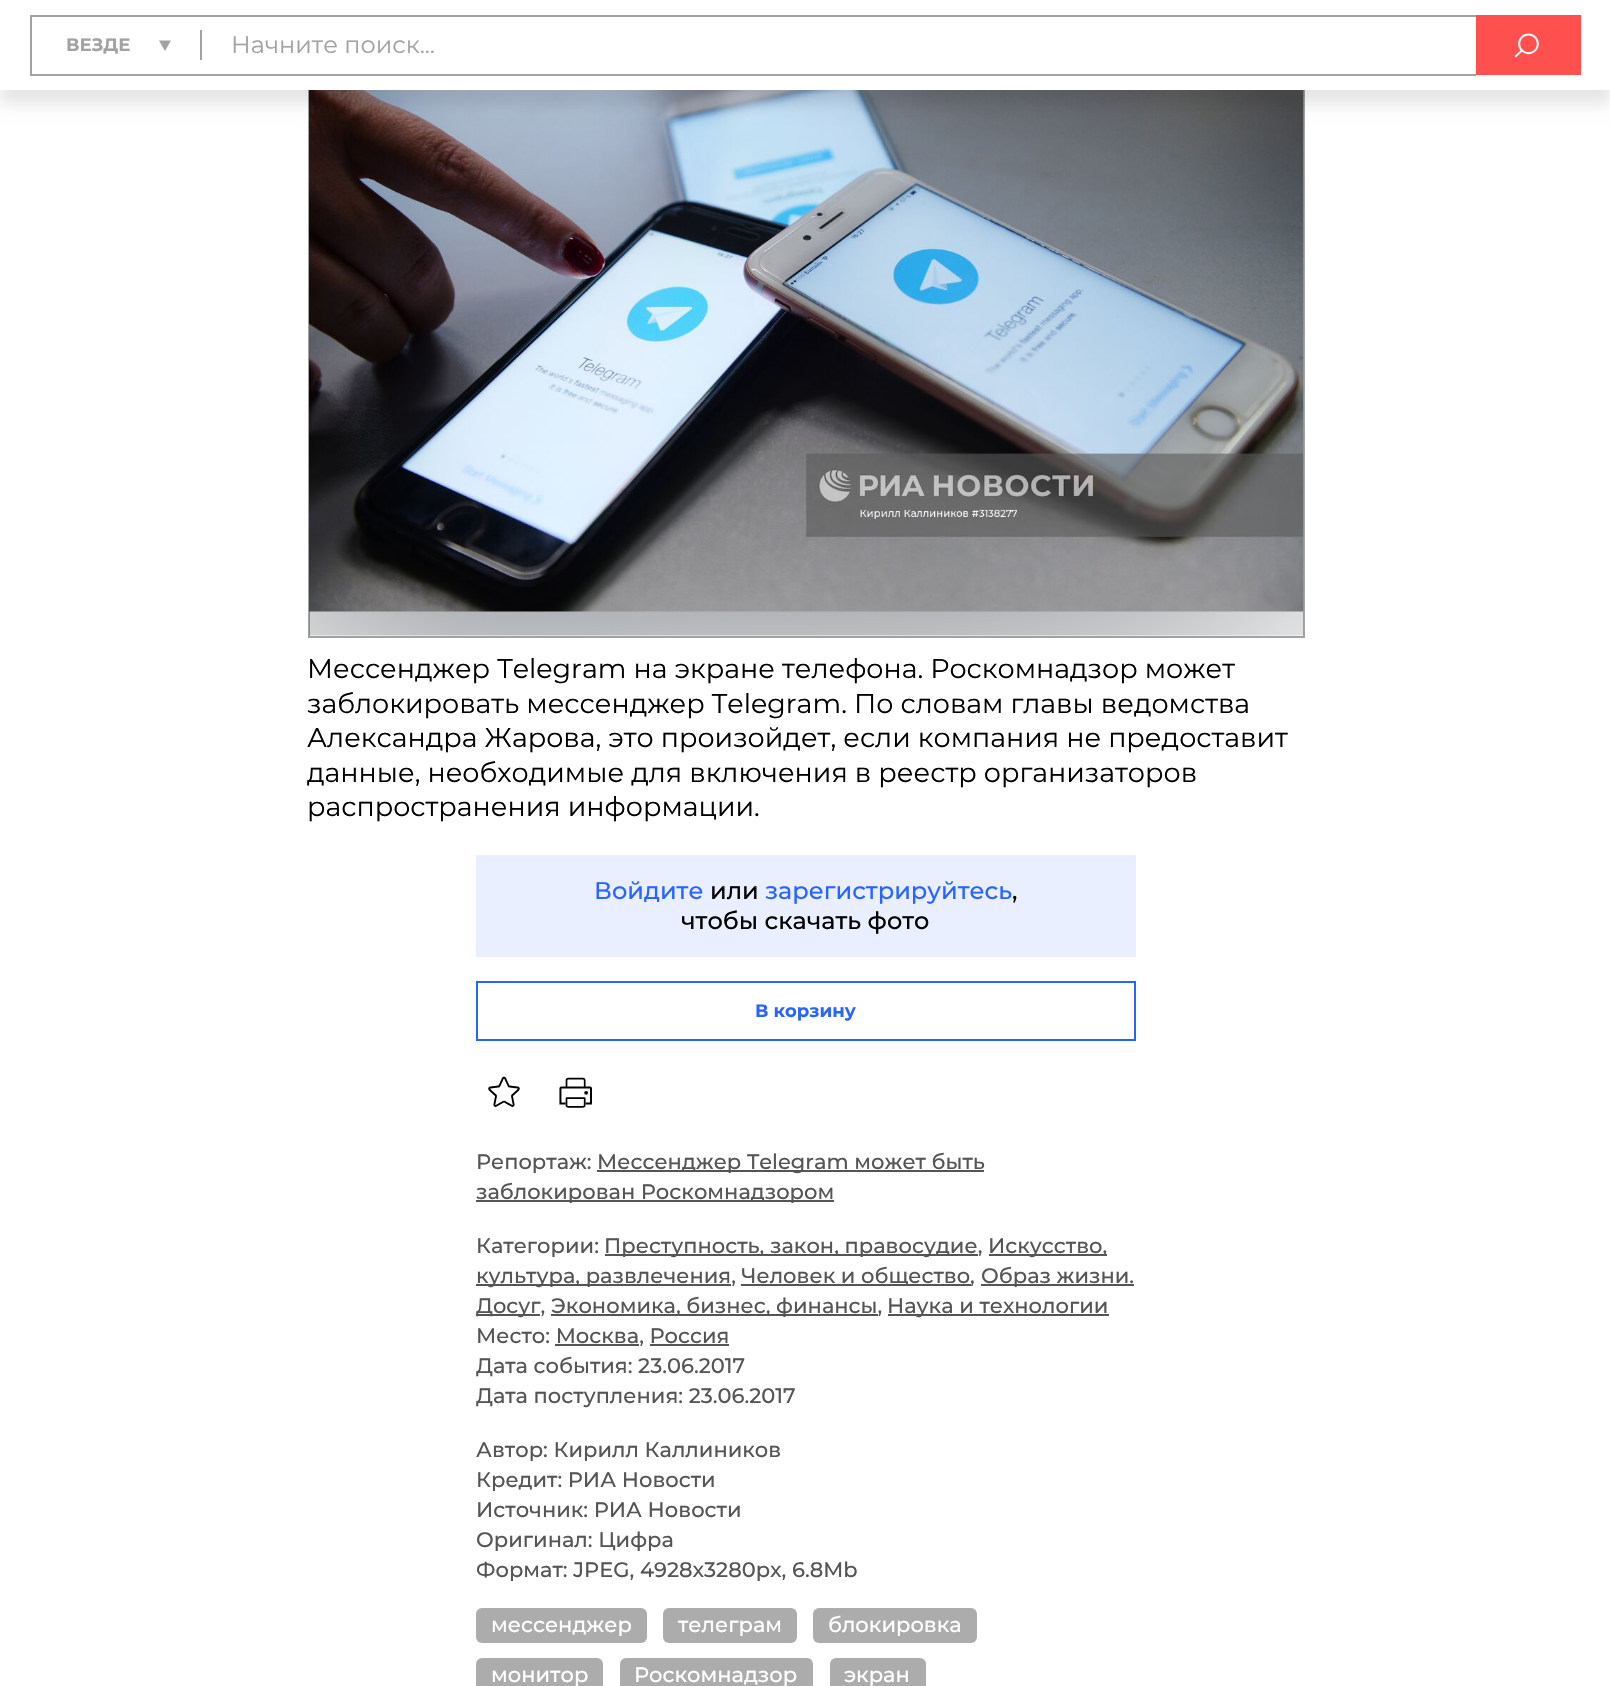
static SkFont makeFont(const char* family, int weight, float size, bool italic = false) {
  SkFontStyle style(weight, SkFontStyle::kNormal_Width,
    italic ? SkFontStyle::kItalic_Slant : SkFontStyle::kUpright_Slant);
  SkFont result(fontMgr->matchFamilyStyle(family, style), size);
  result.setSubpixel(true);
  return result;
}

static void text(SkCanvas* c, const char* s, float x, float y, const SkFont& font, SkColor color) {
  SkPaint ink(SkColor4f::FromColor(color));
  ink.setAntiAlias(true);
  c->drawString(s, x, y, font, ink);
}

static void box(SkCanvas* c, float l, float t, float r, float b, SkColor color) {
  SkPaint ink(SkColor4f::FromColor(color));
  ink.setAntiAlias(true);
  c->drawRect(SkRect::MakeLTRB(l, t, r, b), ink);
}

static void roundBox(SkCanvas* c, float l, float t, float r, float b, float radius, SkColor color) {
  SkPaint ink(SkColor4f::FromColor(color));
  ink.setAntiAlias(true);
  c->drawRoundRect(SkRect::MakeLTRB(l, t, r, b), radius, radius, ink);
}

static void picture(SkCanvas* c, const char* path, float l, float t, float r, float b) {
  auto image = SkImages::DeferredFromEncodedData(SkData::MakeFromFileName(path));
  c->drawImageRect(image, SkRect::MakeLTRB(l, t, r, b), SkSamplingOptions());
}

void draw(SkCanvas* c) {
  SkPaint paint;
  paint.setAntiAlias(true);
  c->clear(0xffffffff);
  paint.setStyle(SkPaint::kStroke_Style);
  paint.setStrokeWidth(2);
  paint.setColor(0xffa3a2a2);
  c->drawRect(SkRect::MakeLTRB(309, -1, 1304, 637), paint);
  picture(c, "img_02.png", 309, 90, 1304, 636);
  picture(c, "img_03.png", 309, 90, 1304, 612);
  paint.setStyle(SkPaint::kFill_Style);
  paint.setColor(0x1a000000);
  paint.setMaskFilter(SkMaskFilter::MakeBlur(kNormal_SkBlurStyle, 7.5f));
  c->drawRect(SkRect::MakeLTRB(0, -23, 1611, 104), paint);
  paint.setMaskFilter(nullptr);
  box(c, 0, 0, 1610, 90, 0xffffffff);
  box(c, 30, 15, 1476, 17, 0xffa3a2a2);
  box(c, 30, 74, 1476, 76, 0xffa3a2a2);
  box(c, 30, 15, 32, 75, 0xffa3a2a2);
  SkFont face1 = makeFont("Montserrat", 700, 18);
  text(c, "ВЕЗДЕ", 66, 51, face1, 0xffa3a2a2);
  paint.setColor(0xffa3a2a2);
  c->drawPath(SkPathBuilder().moveTo(159, 40.5f).lineTo(171, 40.5f).lineTo(165, 51).close().detach(), paint);
  box(c, 200, 30, 202, 60, 0xffa3a2a2);
  SkFont face2 = makeFont("Montserrat", 400, 24);
  text(c, "Начните поиск...", 231, 53, face2, 0xffa3a2a2);
  box(c, 1476, 15, 1581, 75, 0xffff5050);
  picture(c, "img_01.png", 1514, 33, 1539, 58);
  SkFont face3 = makeFont("Montserrat", 400, 27);
  text(c, "Мессенджер Telegram на экране телефона. Роскомнадзор может", 307, 678, face3, 0xff000000);
  text(c, "заблокировать мессенджер Telegram. По словам главы ведомства", 307, 713, face3, 0xff000000);
  text(c, "Александра Жарова, это произойдет, если компания не предоставит", 307, 747, face3, 0xff000000);
  text(c, "данные, необходимые для включения в реестр организаторов", 307, 782, face3, 0xff000000);
  text(c, "распространения информации.", 307, 816, face3, 0xff000000);
  box(c, 476, 855, 1136, 957, 0xffe9efff);
  SkFont face4 = makeFont("Montserrat", 500, 24);
  text(c, "Войдите", 594, 899, face4, 0xff2864ff);
  text(c, "или", 710, 899, face4, 0xff000000);
  text(c, "зарегистрируйтесь", 765, 899, face4, 0xff2864ff);
  text(c, ",", 1012, 899, face4, 0xff000000);
  text(c, "чтобы скачать фото", 681, 929, face4, 0xff000000);
  paint.setStyle(SkPaint::kStroke_Style);
  paint.setColor(0xff2864ff);
  c->drawRect(SkRect::MakeLTRB(477, 982, 1135, 1040), paint);
  text(c, "В корзину", 755, 1017, face1, 0xff2864ff);
  picture(c, "img_04.png", 488, 1076, 520, 1107);
  picture(c, "img_05.png", 559, 1077, 592, 1108);
  SkFont face5 = makeFont("Montserrat", 500, 21);
  text(c, "Репортаж:", 476, 1169, face5, 0xff555555);
  box(c, 597, 1170, 984, 1172, 0xff555555);
  text(c, "Мессенджер Telegram может быть", 597, 1169, face5, 0xff555555);
  box(c, 476, 1200, 834, 1202, 0xff555555);
  text(c, "заблокирован Роскомнадзором", 476, 1199, face5, 0xff555555);
  text(c, "Категории:", 476, 1253, face5, 0xff555555);
  box(c, 605, 1254, 978, 1256, 0xff555555);
  text(c, "Преступность, закон, правосудие,", 604, 1253, face5, 0xff555555);
  box(c, 989, 1254, 1107, 1256, 0xff555555);
  text(c, "Искусство,", 988, 1253, face5, 0xff555555);
  box(c, 476, 1284, 731, 1286, 0xff555555);
  text(c, "культура, развлечения,", 476, 1283, face5, 0xff555555);
  box(c, 741, 1284, 971, 1286, 0xff555555);
  text(c, "Человек и общество,", 741, 1283, face5, 0xff555555);
  box(c, 981, 1284, 1134, 1286, 0xff555555);
  text(c, "Образ жизни.", 981, 1283, face5, 0xff555555);
  box(c, 476, 1314, 540, 1316, 0xff555555);
  text(c, "Досуг,", 476, 1313, face5, 0xff555555);
  box(c, 551, 1314, 878, 1316, 0xff555555);
  text(c, "Экономика, бизнес, финансы,", 551, 1313, face5, 0xff555555);
  box(c, 888, 1314, 1109, 1316, 0xff555555);
  text(c, "Наука и технологии", 887, 1313, face5, 0xff555555);
  text(c, "Место: Москва, Россия", 476, 1343, face5, 0xff555555);
  box(c, 555, 1344, 639, 1346, 0xff555555);
  box(c, 650, 1344, 729, 1346, 0xff555555);
  text(c, "Дата события: 23.06.2017", 476, 1373, face5, 0xff555555);
  text(c, "Дата поступления: 23.06.2017", 476, 1403, face5, 0xff555555);
  text(c, "Автор: Кирилл Каллиников", 476, 1457, face5, 0xff555555);
  text(c, "Кредит: РИА Новости", 476, 1487, face5, 0xff555555);
  text(c, "Источник: РИА Новости", 476, 1517, face5, 0xff555555);
  text(c, "Оригинал: Цифра", 476, 1547, face5, 0xff555555);
  text(c, "Формат: JPEG, 4928x3280px, 6.8Mb", 476, 1577, face5, 0xff555555);
  roundBox(c, 476, 1608, 647, 1643, 6, 0xffacacac);
  text(c, "мессенджер", 491, 1632, face5, 0xffffffff);
  roundBox(c, 663, 1608, 797, 1643, 6, 0xffacacac);
  text(c, "телеграм", 678, 1632, face5, 0xffffffff);
  roundBox(c, 813, 1608, 977, 1643, 6, 0xffacacac);
  text(c, "блокировка", 828, 1632, face5, 0xffffffff);
  roundBox(c, 476, 1658, 603, 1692, 6, 0xffacacac);
  text(c, "монитор", 491, 1682, face5, 0xffffffff);
  roundBox(c, 620, 1658, 813, 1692, 6, 0xffacacac);
  text(c, "Роскомнадзор", 634, 1682, face5, 0xffffffff);
  roundBox(c, 830, 1658, 926, 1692, 6, 0xffacacac);
  text(c, "экран", 844, 1682, face5, 0xffffffff);
}
